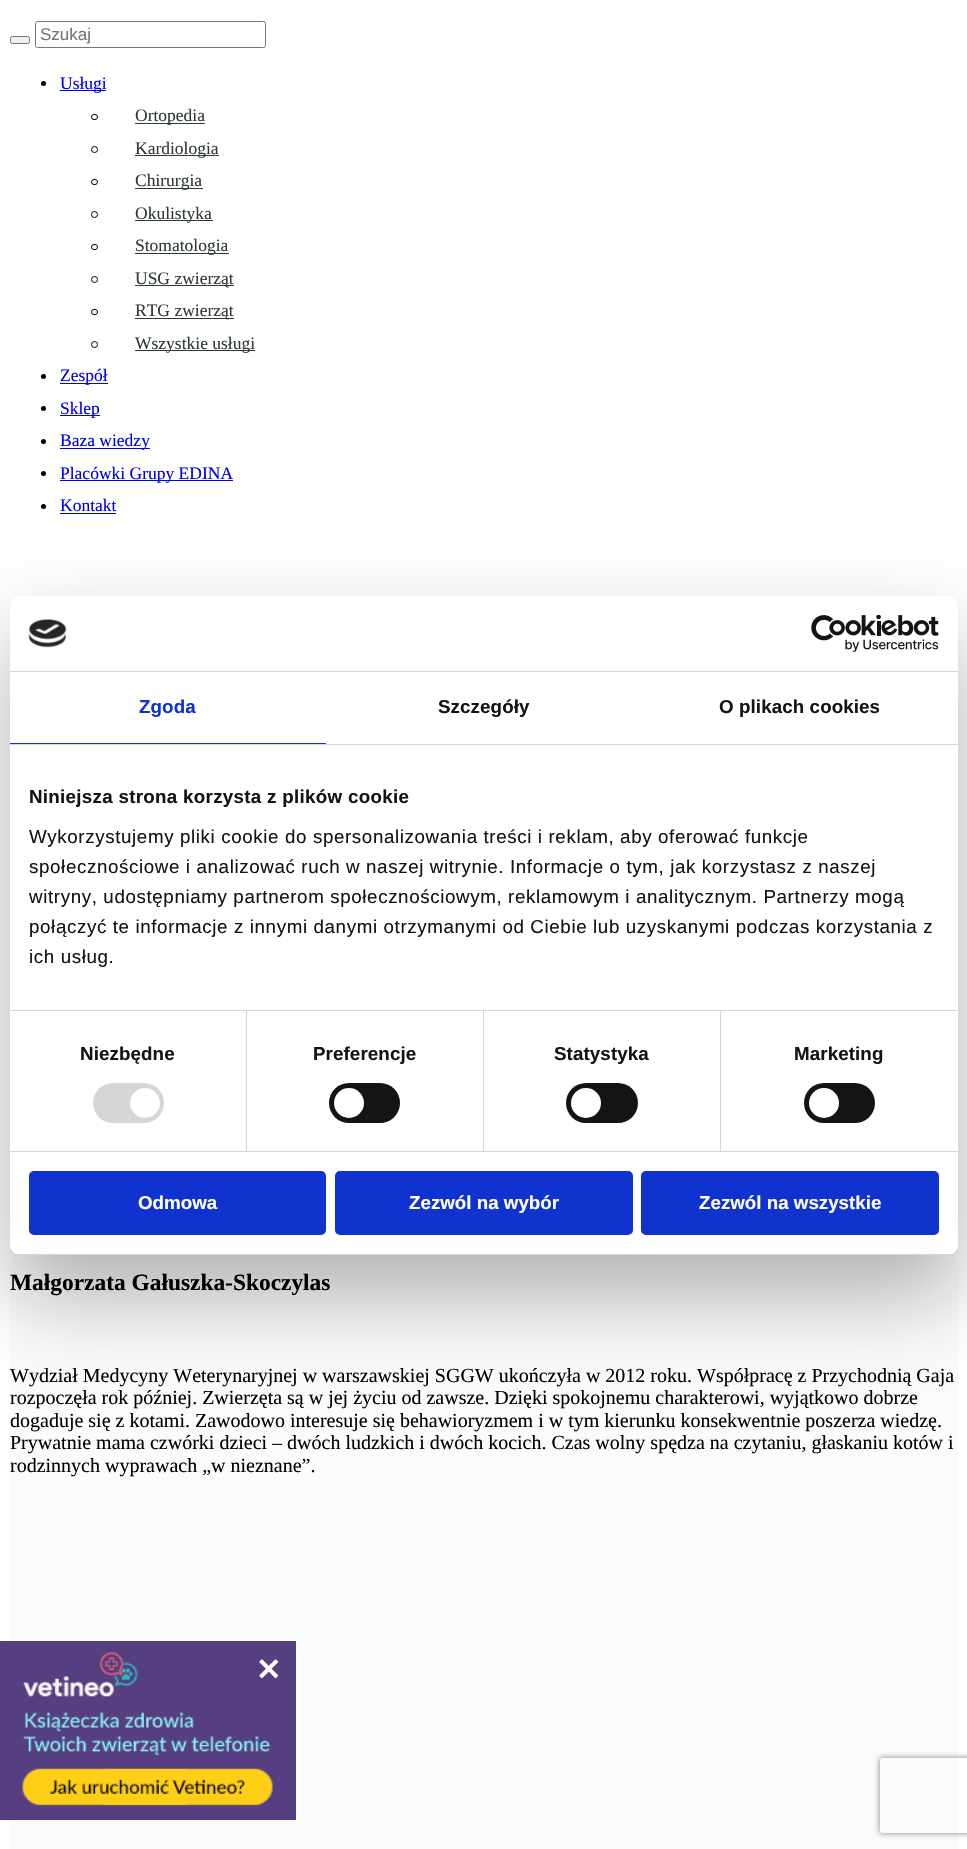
static SkFont makeFont(const char* family, int weight, float size, bool italic = false) {
  SkFontStyle style(weight, SkFontStyle::kNormal_Width,
    italic ? SkFontStyle::kItalic_Slant : SkFontStyle::kUpright_Slant);
  SkFont result(fontMgr->matchFamilyStyle(family, style), size);
  result.setSubpixel(true);
  return result;
}

static void text(SkCanvas* c, const char* s, float x, float y, const SkFont& font, SkColor color) {
  SkPaint ink(SkColor4f::FromColor(color));
  ink.setAntiAlias(true);
  c->drawString(s, x, y, font, ink);
}

static void spacedText(SkCanvas* c, const char* s, float x, float y, const SkFont& font, const SkPaint& ink, float letter, float word) {
  std::vector<SkGlyphID> glyphs(font.countText(s, strlen(s), SkTextEncoding::kUTF8));
  std::vector<float> xs(glyphs.size());
  font.textToGlyphs(s, strlen(s), SkTextEncoding::kUTF8, glyphs);
  font.getXPos(glyphs, xs, x);
  float extra = 0;
  for (size_t i = 0; i < glyphs.size(); i++) {
    xs[i] += extra;
    extra += letter + word * (glyphs[i] == font.unicharToGlyph(' '));
  }
  c->drawTextBlob(SkTextBlob::MakeFromPosHGlyphs(glyphs, xs, y, font), 0, 0, ink);
}

static void box(SkCanvas* c, float l, float t, float r, float b, SkColor color) {
  SkPaint ink(SkColor4f::FromColor(color));
  ink.setAntiAlias(true);
  c->drawRect(SkRect::MakeLTRB(l, t, r, b), ink);
}

static void roundBox(SkCanvas* c, float l, float t, float r, float b, float radius, SkColor color) {
  SkPaint ink(SkColor4f::FromColor(color));
  ink.setAntiAlias(true);
  c->drawRoundRect(SkRect::MakeLTRB(l, t, r, b), radius, radius, ink);
}

static void picture(SkCanvas* c, const char* path, float l, float t, float r, float b) {
  auto image = SkImages::DeferredFromEncodedData(SkData::MakeFromFileName(path));
  c->drawImageRect(image, SkRect::MakeLTRB(l, t, r, b), SkSamplingOptions());
}

void draw(SkCanvas* c) {
  SkPaint paint;
  paint.setAntiAlias(true);
  c->clear(0xffffffff);
  paint.setColor(0xffefefef);
  c->drawRoundRect(SkRect::MakeLTRB(10.5f, 36.5f, 29.5f, 43.5f), 2, 2, paint);
  paint.setStyle(SkPaint::kStroke_Style);
  paint.setStrokeWidth(1);
  paint.setColor(0xff767676);
  c->drawRoundRect(SkRect::MakeLTRB(10.5f, 36.5f, 29.5f, 43.5f), 2, 2, paint);
  c->drawRoundRect(SkRect::MakeLTRB(35.5f, 21.5f, 265.5f, 47.5f), 2, 2, paint);
  SkFont face1 = makeFont("Liberation Sans", 400, 17);
  text(c, "Szukaj", 40, 40, face1, 0xff757575);
  paint.setStyle(SkPaint::kFill_Style);
  paint.setColor(0xff000000);
  c->drawCircle(43.5f, 83.5f, 2.5f, paint);
  box(c, 60, 90, 106, 91, 0xff0000ee);
  SkFont face2 = makeFont("Liberation Serif", 400, 17.5f);
  text(c, "Usługi", 60, 89, face2, 0xff0000ee);
  paint.setStyle(SkPaint::kStroke_Style);
  c->drawRoundRect(SkRect::MakeLTRB(91.5f, 114.5f, 97.5f, 119.5f), 2.5f, 2.5f, paint);
  box(c, 135, 123, 205, 124, 0xff30383b);
  text(c, "Ortopedia", 135, 121, face2, 0xff30383b);
  c->drawCircle(94.5f, 149.5f, 3, paint);
  box(c, 135, 155, 219, 156, 0xff30383b);
  text(c, "Kardiologia", 135, 154, face2, 0xff30383b);
  c->drawRoundRect(SkRect::MakeLTRB(91.5f, 179.5f, 97.5f, 184.5f), 2.5f, 2.5f, paint);
  box(c, 135, 188, 203, 189, 0xff30383b);
  text(c, "Chirurgia", 135, 186, face2, 0xff30383b);
  c->drawCircle(94.5f, 214.5f, 3, paint);
  box(c, 135, 220, 213, 221, 0xff30383b);
  text(c, "Okulistyka", 135, 219, face2, 0xff30383b);
  c->drawRoundRect(SkRect::MakeLTRB(91.5f, 244.5f, 97.5f, 249.5f), 2.5f, 2.5f, paint);
  box(c, 135, 253, 229, 254, 0xff30383b);
  text(c, "Stomatologia", 135, 251, face2, 0xff30383b);
  c->drawCircle(94.5f, 279.5f, 3, paint);
  box(c, 135, 285, 234, 286, 0xff30383b);
  text(c, "USG zwierząt", 135, 284, face2, 0xff30383b);
  c->drawRoundRect(SkRect::MakeLTRB(91.5f, 309.5f, 97.5f, 314.5f), 2.5f, 2.5f, paint);
  box(c, 135, 318, 234, 319, 0xff30383b);
  text(c, "RTG zwierząt", 135, 316, face2, 0xff30383b);
  c->drawCircle(94.5f, 344.5f, 3, paint);
  box(c, 135, 350, 255, 351, 0xff30383b);
  text(c, "Wszystkie usługi", 135, 349, face2, 0xff30383b);
  paint.setStyle(SkPaint::kFill_Style);
  c->drawCircle(43.5f, 376.5f, 2.5f, paint);
  box(c, 60, 383, 108, 384, 0xff0000ee);
  text(c, "Zespół", 60, 381, face2, 0xff0000ee);
  c->drawCircle(43.5f, 408.5f, 2.5f, paint);
  box(c, 60, 415, 100, 416, 0xff0000ee);
  text(c, "Sklep", 60, 414, face2, 0xff0000ee);
  c->drawCircle(43.5f, 441.5f, 2.5f, paint);
  box(c, 60, 448, 150, 449, 0xff0000ee);
  text(c, "Baza wiedzy", 60, 446, face2, 0xff0000ee);
  c->drawCircle(43.5f, 473.5f, 2.5f, paint);
  box(c, 60, 480, 233, 481, 0xff0000ee);
  text(c, "Placówki Grupy EDINA", 60, 479, face2, 0xff0000ee);
  c->drawCircle(43.5f, 506.5f, 2.5f, paint);
  text(c, "Kontakt", 60, 511, face2, 0xff0000ee);
  box(c, 60, 513, 116, 514, 0xff0000ee);
  box(c, 10, 1245, 958, 1849, 0xfffafcfc);
  SkFont face3 = makeFont("Liberation Serif", 700, 23.4f);
  text(c, "Małgorzata Gałuszka-Skoczylas", 10, 1290, face3, 0xff000000);
  SkFont face4 = makeFont("Liberation Serif", 400, 20);
  text(c, "Wydział Medycyny Weterynaryjnej w warszawskiej SGGW ukończyła w 2012 roku. Współpracę z Przychodnią Gaja", 10, 1382, face4, 0xff000000);
  text(c, "rozpoczęła rok później. Zwierzęta są w jej życiu od zawsze. Dzięki spokojnemu charakterowi, wyjątkowo dobrze", 10, 1404, face4, 0xff000000);
  text(c, "dogaduje się z kotami. Zawodowo interesuje się behawioryzmem i w tym kierunku konsekwentnie poszerza wiedzę.", 10, 1427, face4, 0xff000000);
  text(c, "Prywatnie mama czwórki dzieci – dwóch ludzkich i dwóch kocich. Czas wolny spędza na czytaniu, głaskaniu kotów i", 10, 1449, face4, 0xff000000);
  text(c, "rodzinnych wyprawach „w nieznane”.", 10, 1472, face4, 0xff000000);
  paint.setColor(0x4d000000);
  paint.setMaskFilter(SkMaskFilter::MakeBlur(kNormal_SkBlurStyle, 42.5f));
  c->drawRoundRect(SkRect::MakeLTRB(10, 636, 958, 1295), 10, 10, paint);
  paint.setMaskFilter(nullptr);
  roundBox(c, 10, 596, 958, 1255, 10, 0xffffffff);
  box(c, 10, 671, 958, 672, 0xffd6d6d6);
  picture(c, "img_01.png", 28, 619, 67, 648);
  picture(c, "img_02.png", 811, 615, 939, 652);
  box(c, 10, 744, 958, 745, 0xffd6d6d6);
  box(c, 10, 743, 326, 744, 0xff1032cf);
  SkFont face5 = makeFont("Liberation Sans", 700, 18.75f);
  paint.setColor(0xff1032cf);
  spacedText(c, "Zgoda", 139, 713, face5, paint, 0.1f, 0);
  paint.setColor(0xff141414);
  spacedText(c, "Szczegóły", 438, 713, face5, paint, 0.1f, 0);
  spacedText(c, "O plikach cookies", 719, 713, face5, paint, 0.1f, 0);
  box(c, 10, 1010, 958, 1011, 0xffd6d6d6);
  spacedText(c, "Niniejsza strona korzysta z plików cookie", 29, 803, face5, paint, 0.3f, 0);
  SkFont face6 = makeFont("Liberation Sans", 400, 18.75f);
  spacedText(c, "Wykorzystujemy pliki cookie do spersonalizowania treści i reklam, aby oferować funkcje", 29, 843, face6, paint, 0.62f, 0);
  spacedText(c, "społecznościowe i analizować ruch w naszej witrynie. Informacje o tym, jak korzystasz z naszej", 29, 873, face6, paint, 0.62f, 0);
  spacedText(c, "witryny, udostępniamy partnerom społecznościowym, reklamowym i analitycznym. Partnerzy mogą", 29, 903, face6, paint, 0.62f, 0);
  spacedText(c, "połączyć te informacje z innymi danymi otrzymanymi od Ciebie lub uzyskanymi podczas korzystania z", 29, 933, face6, paint, 0.62f, 0);
  spacedText(c, "ich usług.", 29, 963, face6, paint, 0.62f, 0);
  box(c, 10, 1151, 958, 1152, 0xffd6d6d6);
  box(c, 246, 1011, 247, 1151, 0xffd6d6d6);
  spacedText(c, "Niezbędne", 80, 1060, face5, paint, 0.1f, 0);
  roundBox(c, 93, 1083, 164, 1123, 20, 0xffd6d6d6);
  paint.setColor(0xffffffff);
  c->drawCircle(145, 1103, 15, paint);
  box(c, 483, 1011, 484, 1151, 0xffd6d6d6);
  paint.setColor(0xff141414);
  spacedText(c, "Preferencje", 313, 1060, face5, paint, 0.1f, 0);
  roundBox(c, 329, 1083, 400, 1123, 20, 0xff141414);
  paint.setColor(0xffffffff);
  c->drawCircle(349, 1103, 15, paint);
  box(c, 720, 1011, 721, 1151, 0xffd6d6d6);
  paint.setColor(0xff141414);
  spacedText(c, "Statystyka", 554, 1060, face5, paint, 0.1f, 0);
  roundBox(c, 566, 1083, 638, 1123, 20, 0xff141414);
  paint.setColor(0xffffffff);
  c->drawCircle(586, 1103, 15, paint);
  paint.setColor(0xff141414);
  spacedText(c, "Marketing", 794, 1060, face5, paint, 0.1f, 0);
  roundBox(c, 804, 1083, 875, 1123, 20, 0xff141414);
  paint.setColor(0xffffffff);
  c->drawCircle(824, 1103, 15, paint);
  c->save();
  c->clipPath(SkPathBuilder().moveTo(20, 596).lineTo(948, 596).cubicTo(953.5f, 596, 958, 600.5f, 958, 606).lineTo(958, 1245).cubicTo(958, 1250.5f, 953.5f, 1255, 948, 1255).lineTo(20, 1255).cubicTo(14.5f, 1255, 10, 1250.5f, 10, 1245).lineTo(10, 606).cubicTo(10, 600.5f, 14.5f, 596, 20, 596).close().detach(), true);
  box(c, 10, 1254, 958, 1255, 0xffd6d6d6);
  c->restore();
  paint.setColor(0xff1032cf);
  c->drawRoundRect(SkRect::MakeLTRB(30.5f, 1172.5f, 324.5f, 1233.5f), 3.5f, 3.5f, paint);
  paint.setStyle(SkPaint::kStroke_Style);
  paint.setStrokeWidth(3);
  c->drawRoundRect(SkRect::MakeLTRB(30.5f, 1172.5f, 324.5f, 1233.5f), 3.5f, 3.5f, paint);
  text(c, "Odmowa", 138, 1209, face5, 0xffffffff);
  paint.setStyle(SkPaint::kFill_Style);
  c->drawRoundRect(SkRect::MakeLTRB(336.5f, 1172.5f, 631.5f, 1233.5f), 3.5f, 3.5f, paint);
  paint.setStyle(SkPaint::kStroke_Style);
  c->drawRoundRect(SkRect::MakeLTRB(336.5f, 1172.5f, 631.5f, 1233.5f), 3.5f, 3.5f, paint);
  text(c, "Zezwól na wybór", 409, 1209, face5, 0xffffffff);
  paint.setStyle(SkPaint::kFill_Style);
  c->drawRoundRect(SkRect::MakeLTRB(642.5f, 1172.5f, 937.5f, 1233.5f), 3.5f, 3.5f, paint);
  paint.setStyle(SkPaint::kStroke_Style);
  c->drawRoundRect(SkRect::MakeLTRB(642.5f, 1172.5f, 937.5f, 1233.5f), 3.5f, 3.5f, paint);
  text(c, "Zezwól na wszystkie", 699, 1209, face5, 0xffffffff);
  box(c, 0, 1641, 296, 1820, 0xff563f81);
  picture(c, "img_03.png", 22, 1652, 273, 1806);
  picture(c, "img_04.png", 259, 1659, 279, 1679);
  c->save();
  c->clipPath(SkPathBuilder(SkPathFillType::kEvenOdd).moveTo(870, 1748).lineTo(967, 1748).lineTo(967, 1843).lineTo(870, 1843).close().moveTo(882.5f, 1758).lineTo(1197.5f, 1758).cubicTo(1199, 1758, 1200, 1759, 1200, 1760.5f).lineTo(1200, 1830.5f).cubicTo(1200, 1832, 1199, 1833, 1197.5f, 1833).lineTo(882.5f, 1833).cubicTo(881, 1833, 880, 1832, 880, 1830.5f).lineTo(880, 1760.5f).cubicTo(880, 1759, 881, 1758, 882.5f, 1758).close().detach(), true);
  paint.setStyle(SkPaint::kFill_Style);
  paint.setColor(0xff808080);
  paint.setMaskFilter(SkMaskFilter::MakeBlur(kNormal_SkBlurStyle, 3));
  c->drawRoundRect(SkRect::MakeLTRB(880, 1758, 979, 1833), 2.5f, 2.5f, paint);
  paint.setMaskFilter(nullptr);
  c->restore();
}
